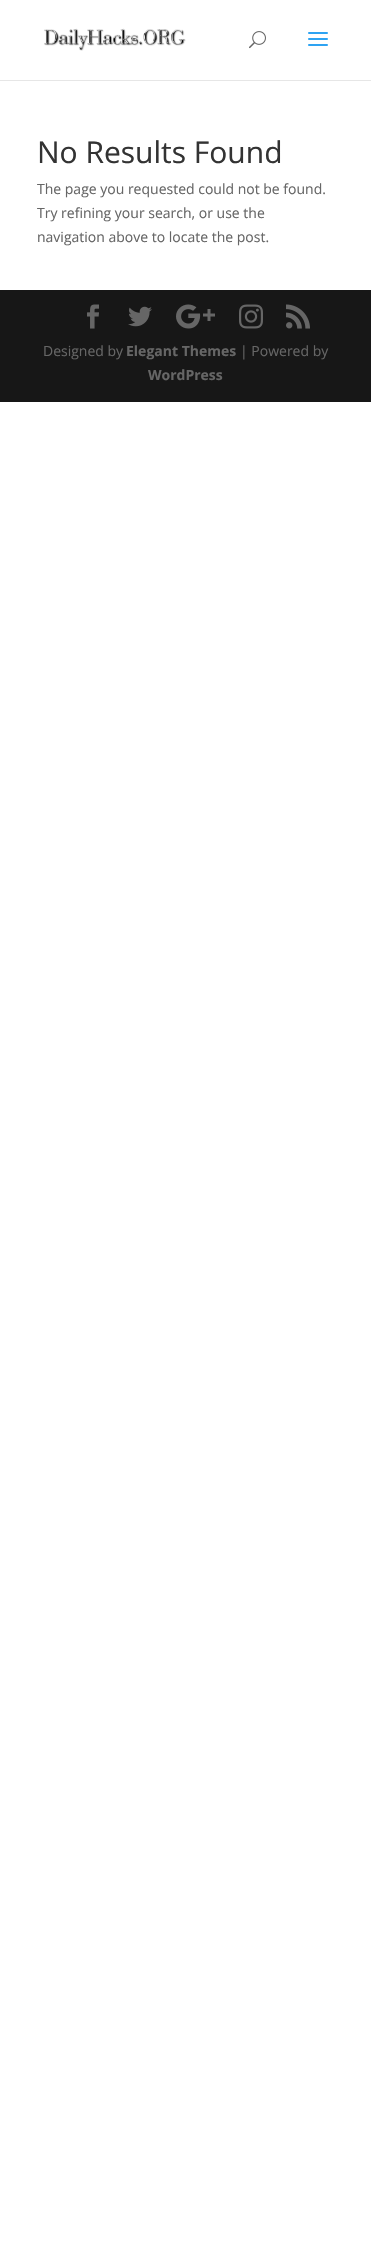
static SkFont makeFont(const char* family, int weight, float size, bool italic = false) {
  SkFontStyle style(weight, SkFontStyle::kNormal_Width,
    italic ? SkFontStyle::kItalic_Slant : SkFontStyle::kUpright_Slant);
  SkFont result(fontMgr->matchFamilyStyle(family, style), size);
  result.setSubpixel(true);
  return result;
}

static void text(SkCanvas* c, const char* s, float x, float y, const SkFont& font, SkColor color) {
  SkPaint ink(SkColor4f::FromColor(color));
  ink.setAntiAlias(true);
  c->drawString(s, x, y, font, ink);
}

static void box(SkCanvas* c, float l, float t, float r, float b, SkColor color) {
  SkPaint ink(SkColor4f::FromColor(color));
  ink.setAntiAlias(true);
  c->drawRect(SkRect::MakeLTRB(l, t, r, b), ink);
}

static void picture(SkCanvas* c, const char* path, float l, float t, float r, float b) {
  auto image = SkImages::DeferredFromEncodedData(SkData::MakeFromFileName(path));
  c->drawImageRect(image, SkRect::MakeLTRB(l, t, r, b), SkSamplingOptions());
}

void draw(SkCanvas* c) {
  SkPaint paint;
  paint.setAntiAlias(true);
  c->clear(0xffffffff);
  box(c, 0, 80, 371, 81, 0xffe6e6e6);
  picture(c, "img_01.png", 44, 28, 186, 51);
  picture(c, "img_02.png", 249, 31, 266, 49);
  picture(c, "img_03.png", 308, 32, 328, 46);
  SkFont face1 = makeFont("Open Sans", 400, 30);
  text(c, "No Results Found", 37, 163, face1, 0xff333333);
  SkFont face2 = makeFont("Open Sans", 400, 14);
  text(c, "The page you requested could not be found.", 37, 194, face2, 0xff666666);
  text(c, "Try refining your search, or use the", 37, 218, face2, 0xff666666);
  text(c, "navigation above to locate the post.", 37, 242, face2, 0xff666666);
  box(c, 0, 290, 371, 402, 0xff171717);
  picture(c, "img_04.png", 87, 304, 99, 329);
  picture(c, "img_05.png", 128, 306, 152, 327);
  picture(c, "img_06.png", 176, 304, 215, 329);
  picture(c, "img_07.png", 239, 304, 263, 329);
  picture(c, "img_08.png", 286, 304, 310, 329);
  text(c, "Designed by", 43, 356, face2, 0xff666666);
  SkFont face3 = makeFont("Open Sans", 700, 14);
  text(c, "Elegant Themes", 126, 356, face3, 0xff666666);
  text(c, "| Powered by", 240, 356, face2, 0xff666666);
  text(c, "WordPress", 148, 380, face3, 0xff666666);
}
